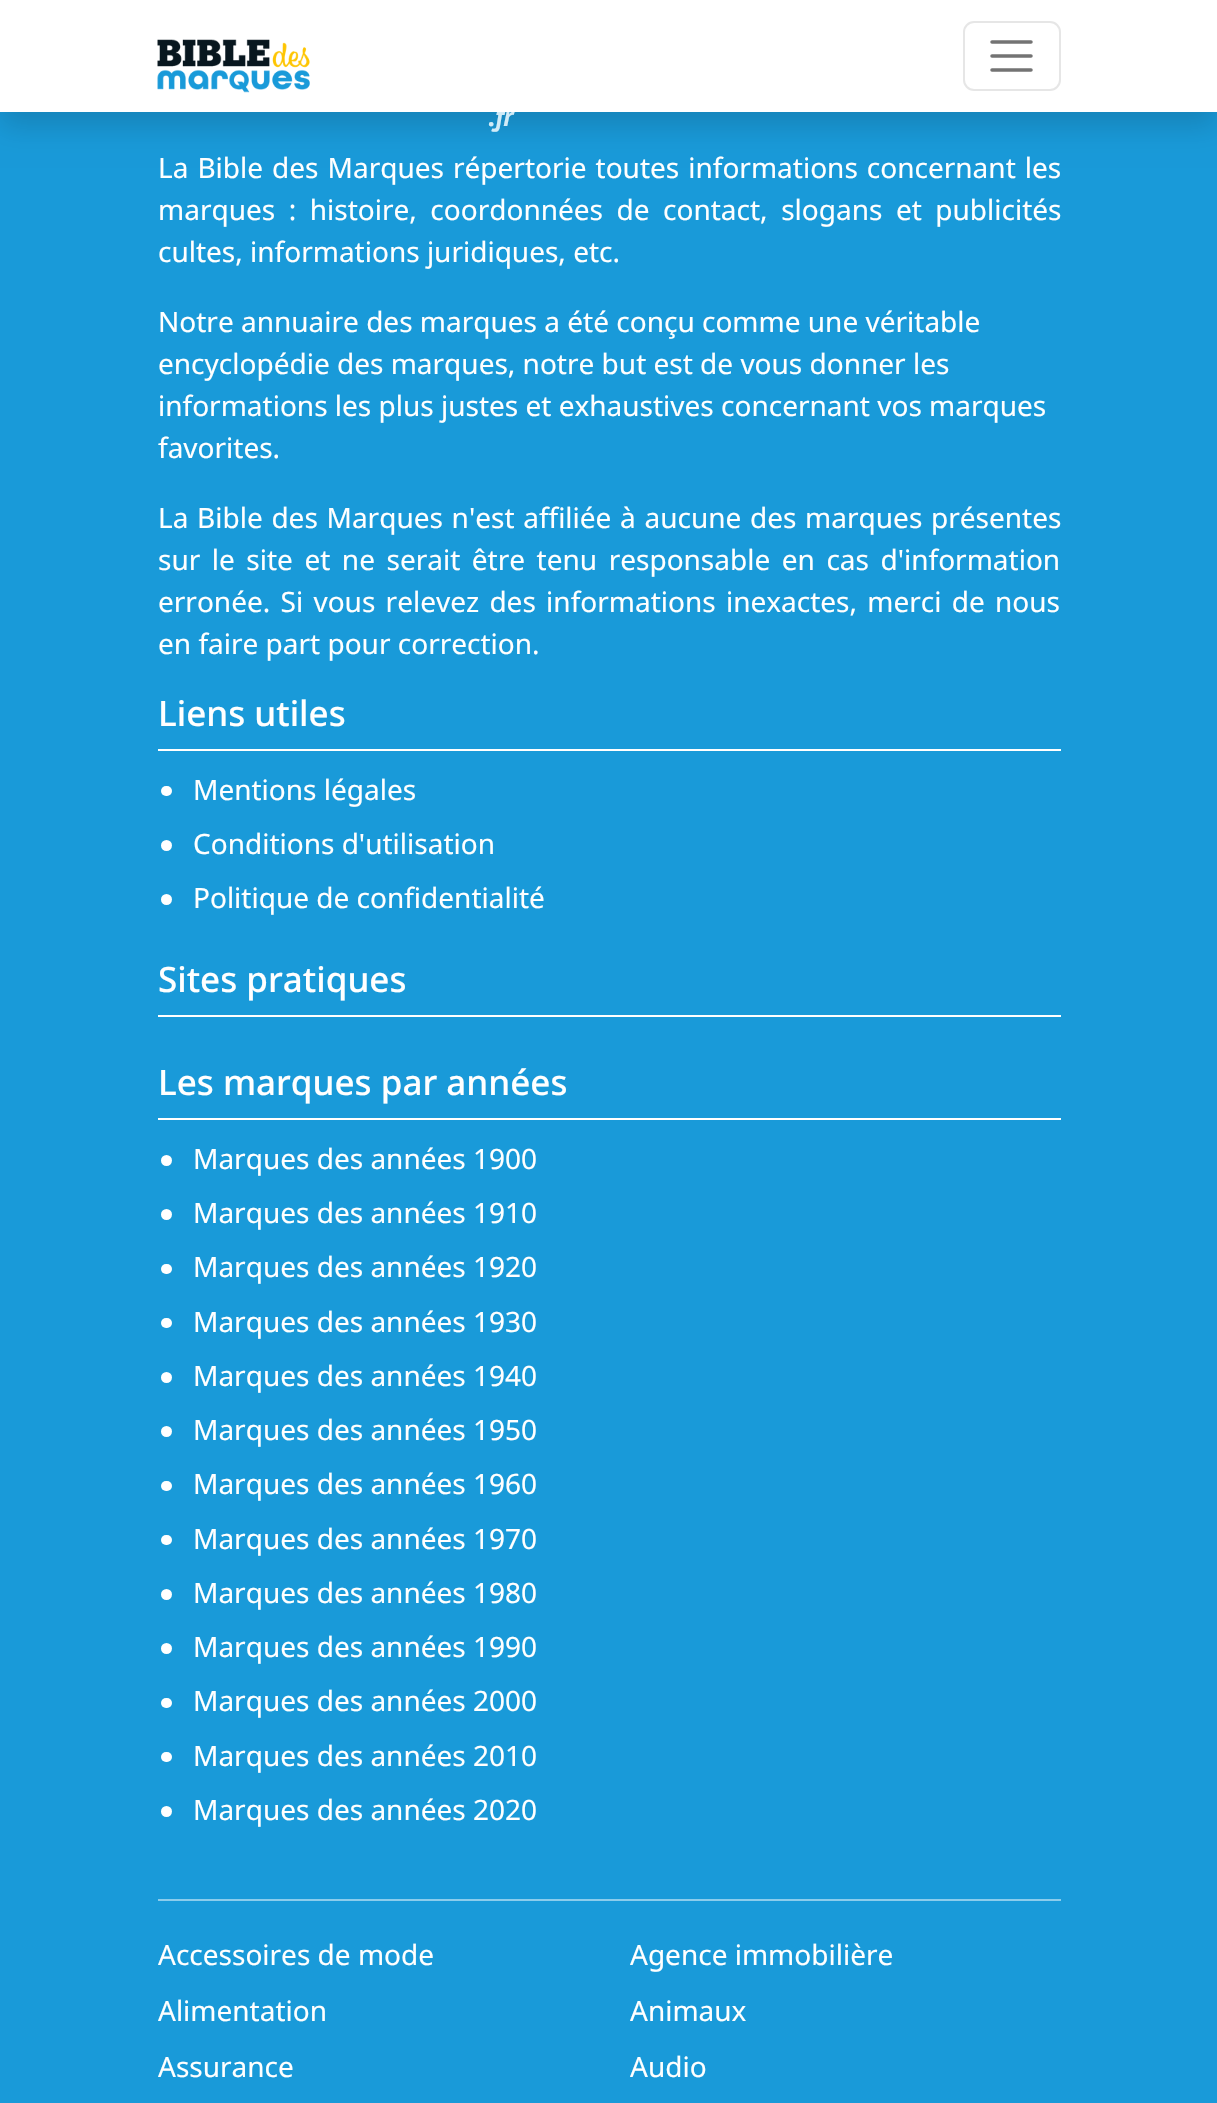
static SkFont makeFont(const char* family, int weight, float size, bool italic = false) {
  SkFontStyle style(weight, SkFontStyle::kNormal_Width,
    italic ? SkFontStyle::kItalic_Slant : SkFontStyle::kUpright_Slant);
  SkFont result(fontMgr->matchFamilyStyle(family, style), size);
  result.setSubpixel(true);
  return result;
}

static void text(SkCanvas* c, const char* s, float x, float y, const SkFont& font, SkColor color) {
  SkPaint ink(SkColor4f::FromColor(color));
  ink.setAntiAlias(true);
  c->drawString(s, x, y, font, ink);
}

static void spacedText(SkCanvas* c, const char* s, float x, float y, const SkFont& font, const SkPaint& ink, float letter, float word) {
  std::vector<SkGlyphID> glyphs(font.countText(s, strlen(s), SkTextEncoding::kUTF8));
  std::vector<float> xs(glyphs.size());
  font.textToGlyphs(s, strlen(s), SkTextEncoding::kUTF8, glyphs);
  font.getXPos(glyphs, xs, x);
  float extra = 0;
  for (size_t i = 0; i < glyphs.size(); i++) {
    xs[i] += extra;
    extra += letter + word * (glyphs[i] == font.unicharToGlyph(' '));
  }
  c->drawTextBlob(SkTextBlob::MakeFromPosHGlyphs(glyphs, xs, y, font), 0, 0, ink);
}

static void box(SkCanvas* c, float l, float t, float r, float b, SkColor color) {
  SkPaint ink(SkColor4f::FromColor(color));
  ink.setAntiAlias(true);
  c->drawRect(SkRect::MakeLTRB(l, t, r, b), ink);
}

static void roundBox(SkCanvas* c, float l, float t, float r, float b, float radius, SkColor color) {
  SkPaint ink(SkColor4f::FromColor(color));
  ink.setAntiAlias(true);
  c->drawRoundRect(SkRect::MakeLTRB(l, t, r, b), radius, radius, ink);
}

static void picture(SkCanvas* c, const char* path, float l, float t, float r, float b) {
  auto image = SkImages::DeferredFromEncodedData(SkData::MakeFromFileName(path));
  c->drawImageRect(image, SkRect::MakeLTRB(l, t, r, b), SkSamplingOptions());
}

void draw(SkCanvas* c) {
  SkPaint paint;
  paint.setAntiAlias(true);
  c->clear(0xff199ad9);
  paint.setColor(0x26000000);
  paint.setMaskFilter(SkMaskFilter::MakeBlur(kNormal_SkBlurStyle, 14));
  c->drawRect(SkRect::MakeLTRB(0, 14, 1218, 126), paint);
  paint.setMaskFilter(nullptr);
  SkFont face1 = makeFont("PT Sans", 700, 28, true);
  text(c, ".fr", 488, 126, face1, 0xffd1ebf7);
  box(c, 0, 0, 1217, 112, 0xffffffff);
  picture(c, "img_01.png", 157, 39, 310, 93);
  paint.setStyle(SkPaint::kStroke_Style);
  paint.setStrokeWidth(2);
  paint.setColor(0xffe6e6e6);
  c->drawRoundRect(SkRect::MakeLTRB(964, 22, 1060, 90), 10, 10, paint);
  paint.setStrokeWidth(3.5f);
  paint.setStrokeCap(SkPaint::kRound_Cap);
  paint.setColor(0xff737373);
  c->drawPath(SkPathBuilder().moveTo(992, 42).lineTo(1031, 42).moveTo(992, 56).lineTo(1031, 56).moveTo(992, 70).lineTo(1031, 70).detach(), paint);
  SkFont face2 = makeFont("Noto Sans", 400, 28);
  paint.setStyle(SkPaint::kFill_Style);
  paint.setColor(0xffffffff);
  spacedText(c, "La Bible des Marques répertorie toutes informations concernant les", 158, 178, face2, paint, 0, 1.75f);
  spacedText(c, "marques : histoire, coordonnées de contact, slogans et publicités", 158, 220, face2, paint, 0, 6.25f);
  text(c, "cultes, informations juridiques, etc.", 158, 262, face2, 0xffffffff);
  text(c, "Notre annuaire des marques a été conçu comme une véritable", 158, 332, face2, 0xffffffff);
  text(c, "encyclopédie des marques, notre but est de vous donner les", 158, 374, face2, 0xffffffff);
  text(c, "informations les plus justes et exhaustives concernant vos marques", 158, 416, face2, 0xffffffff);
  text(c, "favorites.", 158, 458, face2, 0xffffffff);
  spacedText(c, "La Bible des Marques n'est affiliée à aucune des marques présentes", 158, 528, face2, paint, 0, 1.4f);
  spacedText(c, "sur le site et ne serait être tenu responsable en cas d'information", 158, 570, face2, paint, 0, 4.25f);
  spacedText(c, "erronée. Si vous relevez des informations inexactes, merci de nous", 158, 612, face2, paint, 0, 3);
  text(c, "en faire part pour correction.", 158, 654, face2, 0xffffffff);
  SkFont face3 = makeFont("Noto Sans", 500, 35);
  text(c, "Liens utiles", 158, 726, face3, 0xffffffff);
  box(c, 158, 749, 1061, 751, 0xffffffff);
  roundBox(c, 161, 786, 172, 796, 5, 0xffffffff);
  text(c, "Mentions légales", 193, 800, face2, 0xffffffff);
  c->drawCircle(166.5f, 845.5f, 5.5f, paint);
  text(c, "Conditions d'utilisation", 193, 854, face2, 0xffffffff);
  c->drawCircle(166.5f, 899.5f, 5.5f, paint);
  text(c, "Politique de confidentialité", 193, 908, face2, 0xffffffff);
  text(c, "Sites pratiques", 158, 992, face3, 0xffffffff);
  box(c, 158, 1015, 1061, 1017, 0xffffffff);
  text(c, "Les marques par années", 158, 1095, face3, 0xffffffff);
  box(c, 158, 1118, 1061, 1120, 0xffffffff);
  c->drawCircle(166.5f, 1160.5f, 5.5f, paint);
  text(c, "Marques des années 1900", 193, 1169, face2, 0xffffffff);
  c->drawCircle(166.5f, 1214.5f, 5.5f, paint);
  text(c, "Marques des années 1910", 193, 1223, face2, 0xffffffff);
  roundBox(c, 161, 1264, 172, 1274, 5, 0xffffffff);
  text(c, "Marques des années 1920", 193, 1277, face2, 0xffffffff);
  roundBox(c, 161, 1318, 172, 1328, 5, 0xffffffff);
  text(c, "Marques des années 1930", 193, 1332, face2, 0xffffffff);
  c->drawCircle(166.5f, 1377.5f, 5.5f, paint);
  text(c, "Marques des années 1940", 193, 1386, face2, 0xffffffff);
  c->drawCircle(166.5f, 1431.5f, 5.5f, paint);
  text(c, "Marques des années 1950", 193, 1440, face2, 0xffffffff);
  roundBox(c, 161, 1481, 172, 1491, 5, 0xffffffff);
  text(c, "Marques des années 1960", 193, 1494, face2, 0xffffffff);
  roundBox(c, 161, 1535, 172, 1545, 5, 0xffffffff);
  text(c, "Marques des années 1970", 193, 1549, face2, 0xffffffff);
  c->drawCircle(166.5f, 1594.5f, 5.5f, paint);
  text(c, "Marques des années 1980", 193, 1603, face2, 0xffffffff);
  c->drawCircle(166.5f, 1648.5f, 5.5f, paint);
  text(c, "Marques des années 1990", 193, 1657, face2, 0xffffffff);
  roundBox(c, 161, 1698, 172, 1708, 5, 0xffffffff);
  text(c, "Marques des années 2000", 193, 1711, face2, 0xffffffff);
  roundBox(c, 161, 1752, 172, 1762, 5, 0xffffffff);
  text(c, "Marques des années 2010", 193, 1766, face2, 0xffffffff);
  c->drawCircle(166.5f, 1811.5f, 5.5f, paint);
  text(c, "Marques des années 2020", 193, 1820, face2, 0xffffffff);
  box(c, 158, 1899, 1061, 1901, 0xff8ccdec);
  text(c, "Accessoires de mode", 158, 1965, face2, 0xffffffff);
  text(c, "Agence immobilière", 630, 1965, face2, 0xffffffff);
  text(c, "Alimentation", 158, 2021, face2, 0xffffffff);
  text(c, "Animaux", 630, 2021, face2, 0xffffffff);
  text(c, "Assurance", 158, 2077, face2, 0xffffffff);
  text(c, "Audio", 630, 2077, face2, 0xffffffff);
}
